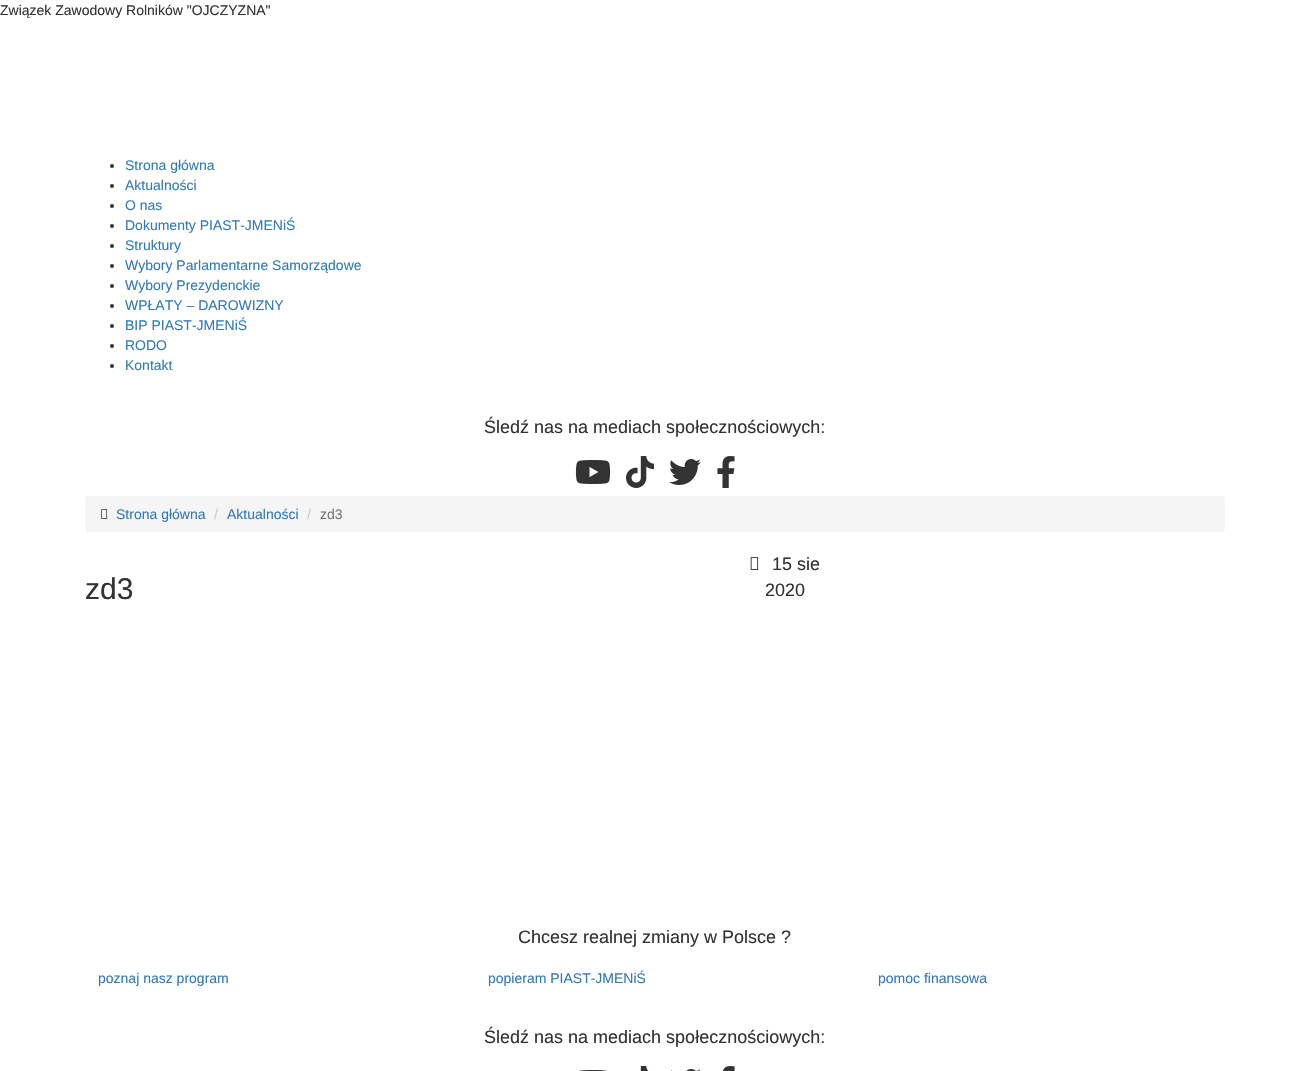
static SkFont makeFont(const char* family, int weight, float size, bool italic = false) {
  SkFontStyle style(weight, SkFontStyle::kNormal_Width,
    italic ? SkFontStyle::kItalic_Slant : SkFontStyle::kUpright_Slant);
  SkFont result(fontMgr->matchFamilyStyle(family, style), size);
  result.setSubpixel(true);
  return result;
}

static void text(SkCanvas* c, const char* s, float x, float y, const SkFont& font, SkColor color) {
  SkPaint ink(SkColor4f::FromColor(color));
  ink.setAntiAlias(true);
  c->drawString(s, x, y, font, ink);
}

static void roundBox(SkCanvas* c, float l, float t, float r, float b, float radius, SkColor color) {
  SkPaint ink(SkColor4f::FromColor(color));
  ink.setAntiAlias(true);
  c->drawRoundRect(SkRect::MakeLTRB(l, t, r, b), radius, radius, ink);
}

static void picture(SkCanvas* c, const char* path, float l, float t, float r, float b) {
  auto image = SkImages::DeferredFromEncodedData(SkData::MakeFromFileName(path));
  c->drawImageRect(image, SkRect::MakeLTRB(l, t, r, b), SkSamplingOptions());
}

void draw(SkCanvas* c) {
  SkPaint paint;
  paint.setAntiAlias(true);
  c->clear(0xffffffff);
  SkFont face1 = makeFont("Liberation Sans", 400, 14);
  text(c, "Związek Zawodowy Rolników \"OJCZYZNA\"", 0, 15, face1, 0xff333333);
  paint.setColor(0xff333333);
  c->drawCircle(112, 166, 2, paint);
  text(c, "Strona główna", 125, 170, face1, 0xff337ab7);
  c->drawCircle(112, 186, 2, paint);
  text(c, "Aktualności", 125, 190, face1, 0xff337ab7);
  c->drawCircle(112, 206, 2, paint);
  text(c, "O nas", 125, 210, face1, 0xff337ab7);
  c->drawCircle(112, 226, 2, paint);
  text(c, "Dokumenty PIAST-JMENiŚ", 125, 230, face1, 0xff337ab7);
  c->drawCircle(112, 246, 2, paint);
  text(c, "Struktury", 125, 250, face1, 0xff337ab7);
  c->drawCircle(112, 266, 2, paint);
  text(c, "Wybory Parlamentarne Samorządowe", 125, 270, face1, 0xff337ab7);
  c->drawCircle(112, 286, 2, paint);
  text(c, "Wybory Prezydenckie", 125, 290, face1, 0xff337ab7);
  c->drawCircle(112, 306, 2, paint);
  text(c, "WPŁATY – DAROWIZNY", 125, 310, face1, 0xff337ab7);
  c->drawCircle(112, 326, 2, paint);
  text(c, "BIP PIAST-JMENiŚ", 125, 330, face1, 0xff337ab7);
  c->drawCircle(112, 346, 2, paint);
  text(c, "RODO", 125, 350, face1, 0xff337ab7);
  c->drawCircle(112, 366, 2, paint);
  text(c, "Kontakt", 125, 370, face1, 0xff337ab7);
  SkFont face2 = makeFont("Liberation Sans", 400, 18);
  text(c, "Śledź nas na mediach społecznościowych:", 484, 433, face2, 0xff333333);
  picture(c, "img_01.png", 575, 460, 611, 484);
  picture(c, "img_02.png", 626, 456, 654, 488);
  picture(c, "img_03.png", 669, 459, 701, 485);
  picture(c, "img_04.png", 717, 456, 735, 488);
  roundBox(c, 85, 496, 1225, 532, 4, 0xfff5f5f5);
  picture(c, "img_05.png", 101, 509, 108, 519);
  text(c, "Strona główna", 116, 519, face1, 0xff337ab7);
  text(c, "/", 214, 519, face1, 0xffcccccc);
  text(c, "Aktualności", 227, 519, face1, 0xff337ab7);
  text(c, "/", 307, 519, face1, 0xffcccccc);
  text(c, "zd3", 320, 519, face1, 0xff777777);
  SkFont face3 = makeFont("Liberation Sans", 400, 30);
  text(c, "zd3", 85, 599, face3, 0xff333333);
  picture(c, "img_06.png", 750, 557, 759, 570);
  text(c, "15 sie", 772, 570, face2, 0xff333333);
  text(c, "2020", 765, 596, face2, 0xff333333);
  text(c, "Chcesz realnej zmiany w Polsce ?", 518, 943, face2, 0xff333333);
  text(c, "poznaj nasz program", 98, 983, face1, 0xff337ab7);
  text(c, "popieram PIAST-JMENiŚ", 488, 983, face1, 0xff337ab7);
  text(c, "pomoc finansowa", 878, 983, face1, 0xff337ab7);
  text(c, "Śledź nas na mediach społecznościowych:", 484, 1043, face2, 0xff333333);
  picture(c, "img_07.png", 579, 1070, 607, 1071);
  picture(c, "img_08.png", 640, 1066, 649, 1071);
  picture(c, "img_09.png", 671, 1069, 700, 1071);
  picture(c, "img_10.png", 723, 1066, 735, 1071);
}
